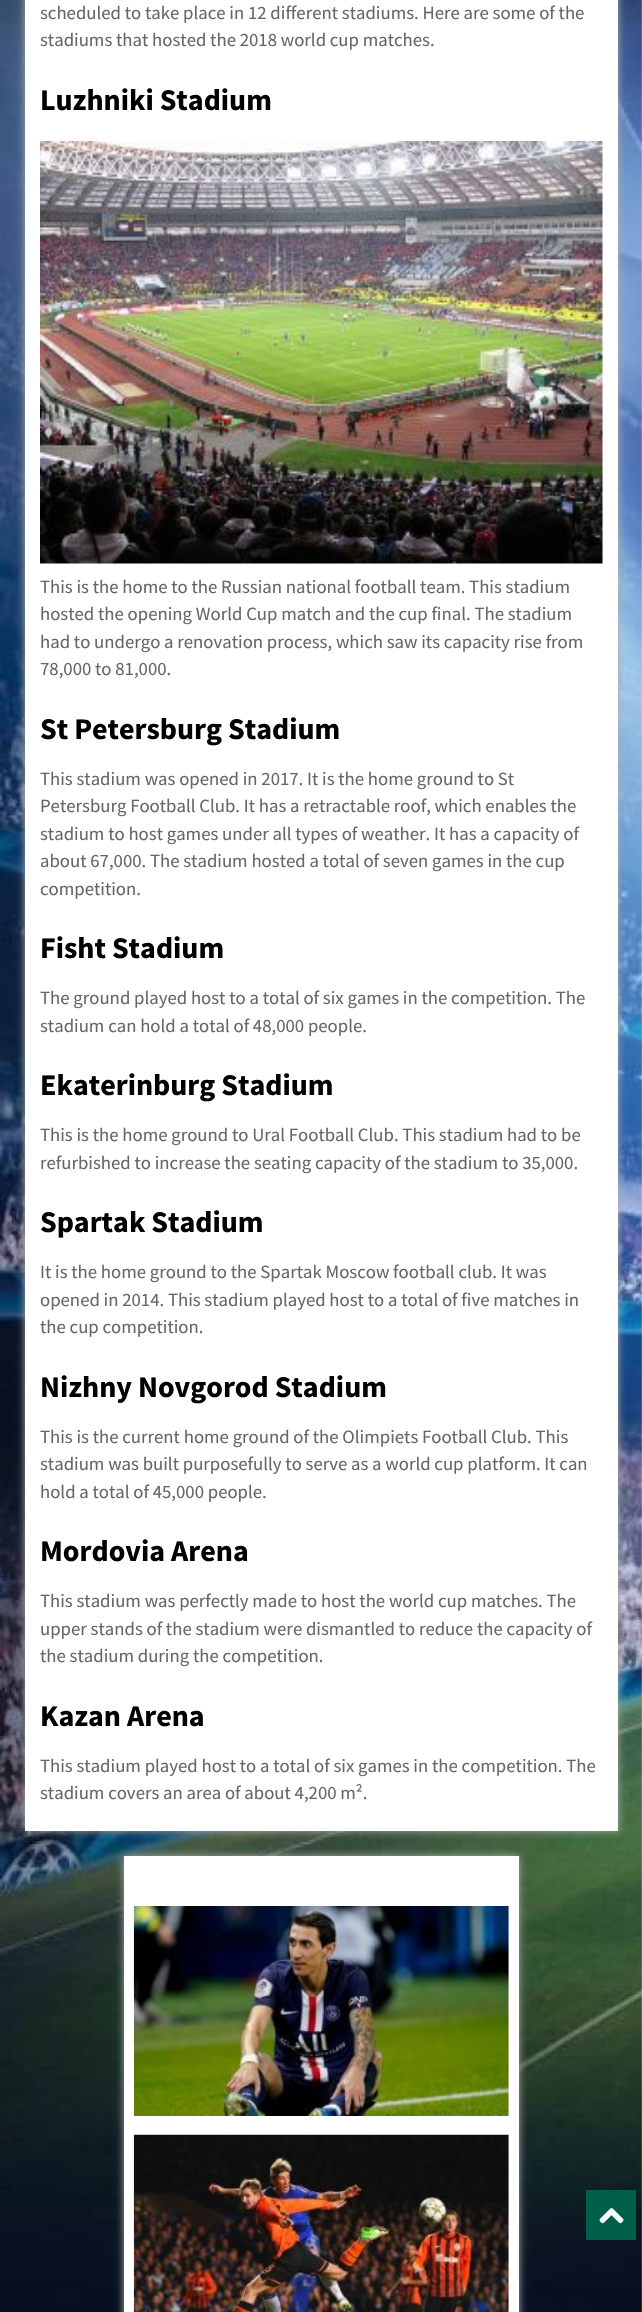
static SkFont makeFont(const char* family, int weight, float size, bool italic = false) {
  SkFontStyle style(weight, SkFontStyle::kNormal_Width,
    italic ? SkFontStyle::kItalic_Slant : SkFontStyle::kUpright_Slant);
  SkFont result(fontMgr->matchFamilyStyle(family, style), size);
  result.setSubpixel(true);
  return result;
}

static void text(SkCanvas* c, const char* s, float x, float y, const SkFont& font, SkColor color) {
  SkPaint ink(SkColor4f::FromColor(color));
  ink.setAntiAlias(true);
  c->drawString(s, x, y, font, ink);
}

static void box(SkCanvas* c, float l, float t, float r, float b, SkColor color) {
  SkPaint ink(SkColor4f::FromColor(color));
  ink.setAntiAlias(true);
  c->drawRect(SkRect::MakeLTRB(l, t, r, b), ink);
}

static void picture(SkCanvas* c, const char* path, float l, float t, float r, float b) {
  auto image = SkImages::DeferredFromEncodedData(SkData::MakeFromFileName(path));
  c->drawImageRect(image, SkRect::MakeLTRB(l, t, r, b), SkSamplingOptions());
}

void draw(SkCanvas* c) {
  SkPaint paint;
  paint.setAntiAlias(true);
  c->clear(0xffffffff);
  picture(c, "img_01.png", 0, 0, 642, 2312);
  paint.setColor(0xffadadad);
  paint.setMaskFilter(SkMaskFilter::MakeBlur(kNormal_SkBlurStyle, 4));
  c->drawRect(SkRect::MakeLTRB(25, -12, 618, 1831), paint);
  paint.setMaskFilter(nullptr);
  box(c, 25, 0, 618, 1831, 0xffffffff);
  SkFont face1 = makeFont("Source Sans Pro", 400, 18.75f);
  text(c, "scheduled to take place in 12 different stadiums. Here are some of the", 40, 19, face1, 0xff666666);
  text(c, "stadiums that hosted the 2018 world cup matches.", 40, 46, face1, 0xff666666);
  SkFont face2 = makeFont("Source Sans Pro", 700, 30);
  text(c, "Luzhniki Stadium", 40, 110, face2, 0xff000000);
  picture(c, "img_02.png", 40, 141, 603, 564);
  text(c, "This is the home to the Russian national football team. This stadium", 40, 593, face1, 0xff666666);
  text(c, "hosted the opening World Cup match and the cup final. The stadium", 40, 620, face1, 0xff666666);
  text(c, "had to undergo a renovation process, which saw its capacity rise from", 40, 648, face1, 0xff666666);
  text(c, "78,000 to 81,000.", 40, 675, face1, 0xff666666);
  text(c, "St Petersburg Stadium", 40, 739, face2, 0xff000000);
  text(c, "This stadium was opened in 2017. It is the home ground to St", 40, 785, face1, 0xff666666);
  text(c, "Petersburg Football Club. It has a retractable roof, which enables the", 40, 812, face1, 0xff666666);
  text(c, "stadium to host games under all types of weather. It has a capacity of", 40, 840, face1, 0xff666666);
  text(c, "about 67,000. The stadium hosted a total of seven games in the cup", 40, 867, face1, 0xff666666);
  text(c, "competition.", 40, 895, face1, 0xff666666);
  text(c, "Fisht Stadium", 40, 958, face2, 0xff000000);
  text(c, "The ground played host to a total of six games in the competition. The", 40, 1004, face1, 0xff666666);
  text(c, "stadium can hold a total of 48,000 people.", 40, 1032, face1, 0xff666666);
  text(c, "Ekaterinburg Stadium", 40, 1095, face2, 0xff000000);
  text(c, "This is the home ground to Ural Football Club. This stadium had to be", 40, 1141, face1, 0xff666666);
  text(c, "refurbished to increase the seating capacity of the stadium to 35,000.", 40, 1169, face1, 0xff666666);
  text(c, "Spartak Stadium", 40, 1232, face2, 0xff000000);
  text(c, "It is the home ground to the Spartak Moscow football club. It was", 40, 1278, face1, 0xff666666);
  text(c, "opened in 2014. This stadium played host to a total of five matches in", 40, 1306, face1, 0xff666666);
  text(c, "the cup competition.", 40, 1333, face1, 0xff666666);
  text(c, "Nizhny Novgorod Stadium", 40, 1397, face2, 0xff000000);
  text(c, "This is the current home ground of the Olimpiets Football Club. This", 40, 1443, face1, 0xff666666);
  text(c, "stadium was built purposefully to serve as a world cup platform. It can", 40, 1470, face1, 0xff666666);
  text(c, "hold a total of 45,000 people.", 40, 1498, face1, 0xff666666);
  text(c, "Mordovia Arena", 40, 1561, face2, 0xff000000);
  text(c, "This stadium was perfectly made to host the world cup matches. The", 40, 1607, face1, 0xff666666);
  text(c, "upper stands of the stadium were dismantled to reduce the capacity of", 40, 1635, face1, 0xff666666);
  text(c, "the stadium during the competition.", 40, 1662, face1, 0xff666666);
  text(c, "Kazan Arena", 40, 1726, face2, 0xff000000);
  text(c, "This stadium played host to a total of six games in the competition. The", 40, 1772, face1, 0xff666666);
  text(c, "stadium covers an area of about 4,200 m².", 40, 1799, face1, 0xff666666);
  paint.setMaskFilter(SkMaskFilter::MakeBlur(kNormal_SkBlurStyle, 4));
  c->drawRect(SkRect::MakeLTRB(124, 1856, 519, 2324), paint);
  paint.setMaskFilter(nullptr);
  box(c, 124, 1856, 519, 2312, 0xffffffff);
  picture(c, "img_03.png", 133, 1906, 509, 2116);
  picture(c, "img_04.png", 133, 2134, 509, 2312);
  box(c, 586, 2190, 636, 2240, 0xff005f49);
  picture(c, "img_05.png", 599, 2208, 624, 2224);
}
